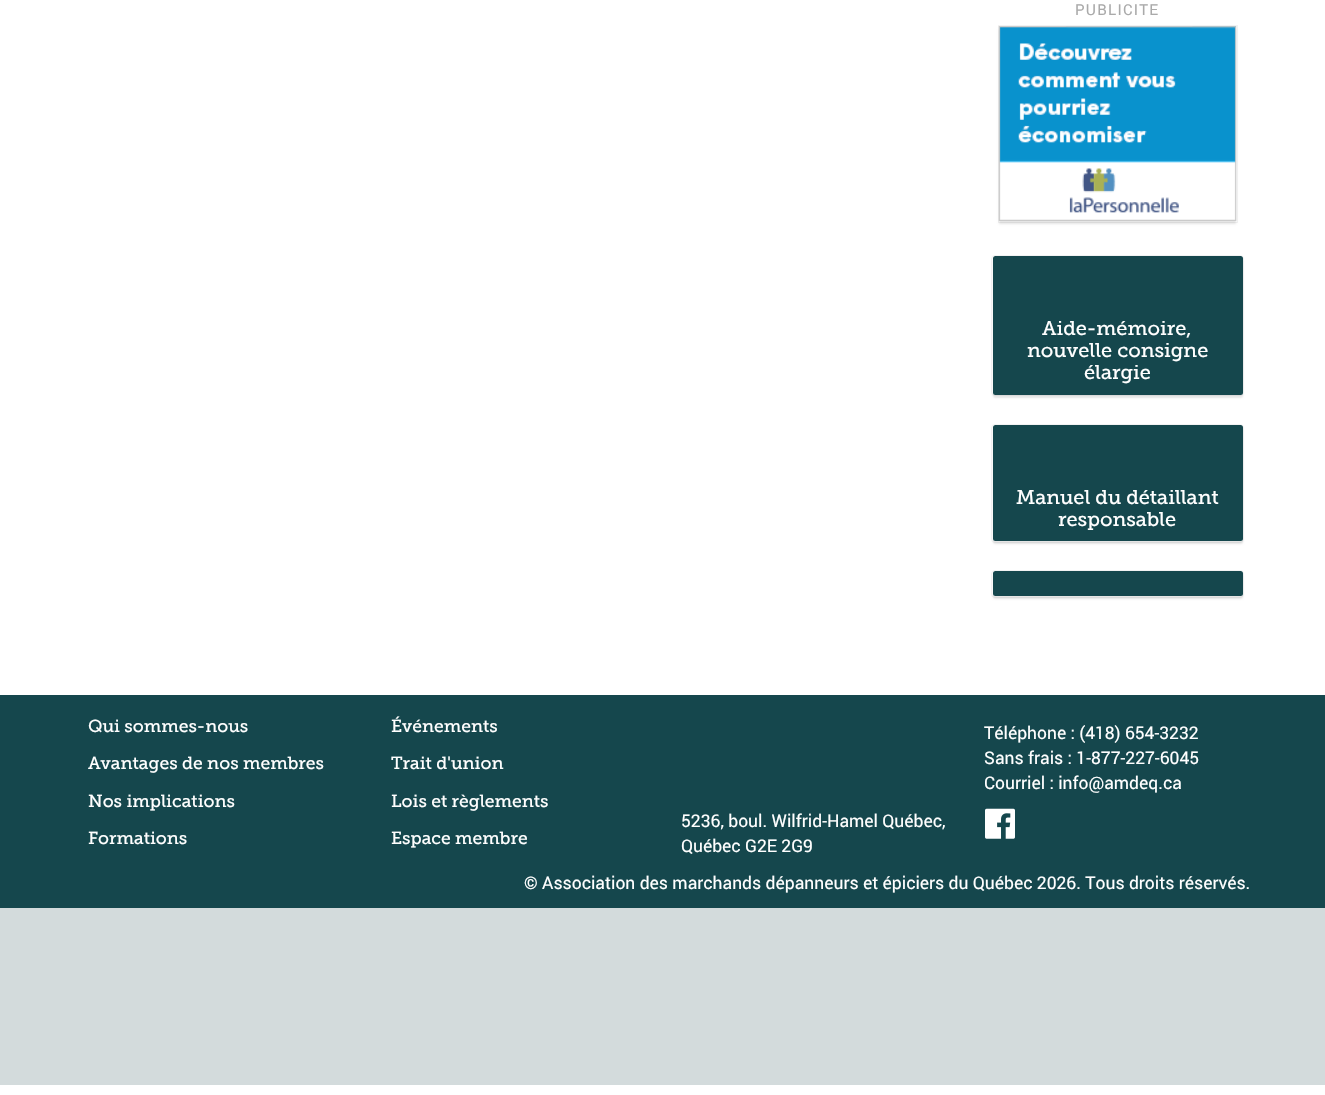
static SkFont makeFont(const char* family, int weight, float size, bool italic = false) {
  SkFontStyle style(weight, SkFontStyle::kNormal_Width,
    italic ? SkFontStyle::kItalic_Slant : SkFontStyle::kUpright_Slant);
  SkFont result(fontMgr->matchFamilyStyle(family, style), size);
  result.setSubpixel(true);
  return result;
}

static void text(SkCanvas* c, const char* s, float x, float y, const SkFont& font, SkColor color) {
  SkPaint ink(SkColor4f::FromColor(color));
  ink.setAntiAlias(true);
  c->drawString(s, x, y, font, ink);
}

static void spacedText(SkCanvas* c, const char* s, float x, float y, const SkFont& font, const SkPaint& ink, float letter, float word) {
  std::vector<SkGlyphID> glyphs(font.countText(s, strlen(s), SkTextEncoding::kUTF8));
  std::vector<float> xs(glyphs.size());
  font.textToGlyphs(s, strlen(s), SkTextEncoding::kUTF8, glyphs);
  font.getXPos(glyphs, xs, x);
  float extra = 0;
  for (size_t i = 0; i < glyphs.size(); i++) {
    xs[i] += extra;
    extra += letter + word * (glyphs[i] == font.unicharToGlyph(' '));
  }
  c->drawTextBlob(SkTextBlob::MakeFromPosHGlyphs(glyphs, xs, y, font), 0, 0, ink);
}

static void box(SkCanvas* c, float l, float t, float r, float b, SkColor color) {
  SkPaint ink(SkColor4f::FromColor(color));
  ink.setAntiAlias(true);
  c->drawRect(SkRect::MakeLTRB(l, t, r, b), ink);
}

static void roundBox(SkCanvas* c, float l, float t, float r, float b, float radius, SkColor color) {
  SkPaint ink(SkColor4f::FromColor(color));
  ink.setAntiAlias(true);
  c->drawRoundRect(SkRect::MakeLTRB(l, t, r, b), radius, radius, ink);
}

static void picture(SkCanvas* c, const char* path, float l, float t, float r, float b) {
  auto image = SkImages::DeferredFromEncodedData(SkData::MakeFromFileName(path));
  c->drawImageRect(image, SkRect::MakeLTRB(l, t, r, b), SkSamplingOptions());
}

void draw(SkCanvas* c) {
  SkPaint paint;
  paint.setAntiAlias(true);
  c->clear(0xffffffff);
  SkFont face1 = makeFont("Roboto", 400, 15);
  paint.setColor(0xffaaaaaa);
  spacedText(c, "PUBLICITE", 1075, 15, face1, paint, 1.25f, 0);
  paint.setStyle(SkPaint::kStroke_Style);
  paint.setStrokeWidth(1);
  paint.setColor(0xfff2f2f2);
  c->drawRect(SkRect::MakeLTRB(998.5f, 25.5f, 1237.5f, 222.5f), paint);
  paint.setStyle(SkPaint::kFill_Style);
  paint.setColor(0x1a000000);
  paint.setMaskFilter(SkMaskFilter::MakeBlur(kNormal_SkBlurStyle, 1));
  c->drawRect(SkRect::MakeLTRB(999, 29, 1236, 224), paint);
  paint.setMaskFilter(nullptr);
  picture(c, "img_01.png", 998, 26, 1237, 221);
  paint.setStyle(SkPaint::kStroke_Style);
  paint.setColor(0xfff2f2f2);
  c->drawRoundRect(SkRect::MakeLTRB(991.5f, 255.5f, 1243.5f, 395.5f), 3.5f, 3.5f, paint);
  paint.setStyle(SkPaint::kFill_Style);
  paint.setColor(0x1a000000);
  paint.setMaskFilter(SkMaskFilter::MakeBlur(kNormal_SkBlurStyle, 1));
  c->drawRoundRect(SkRect::MakeLTRB(993, 259, 1243, 398), 2.5f, 2.5f, paint);
  paint.setMaskFilter(nullptr);
  roundBox(c, 993, 256, 1243, 395, 2.5f, 0xff15474d);
  SkFont face2 = makeFont("Museo Slab", 400, 20);
  text(c, "Aide-mémoire,", 1042, 335, face2, 0xffffffff);
  text(c, "nouvelle consigne", 1027, 357, face2, 0xffffffff);
  text(c, "élargie", 1084, 379, face2, 0xffffffff);
  paint.setStyle(SkPaint::kStroke_Style);
  paint.setColor(0xfff2f2f2);
  c->drawRoundRect(SkRect::MakeLTRB(991.5f, 424.5f, 1243.5f, 542.5f), 3.5f, 3.5f, paint);
  paint.setStyle(SkPaint::kFill_Style);
  paint.setColor(0x1a000000);
  paint.setMaskFilter(SkMaskFilter::MakeBlur(kNormal_SkBlurStyle, 1));
  c->drawRoundRect(SkRect::MakeLTRB(993, 428, 1243, 544), 2.5f, 2.5f, paint);
  paint.setMaskFilter(nullptr);
  roundBox(c, 993, 425, 1243, 541, 2.5f, 0xff15474d);
  text(c, "Manuel du détaillant", 1016, 504, face2, 0xffffffff);
  text(c, "responsable", 1058, 526, face2, 0xffffffff);
  paint.setStyle(SkPaint::kStroke_Style);
  paint.setColor(0xfff2f2f2);
  c->drawRoundRect(SkRect::MakeLTRB(991.5f, 570.5f, 1243.5f, 597.5f), 3.5f, 3.5f, paint);
  paint.setStyle(SkPaint::kFill_Style);
  paint.setColor(0x1a000000);
  paint.setMaskFilter(SkMaskFilter::MakeBlur(kNormal_SkBlurStyle, 1));
  c->drawRoundRect(SkRect::MakeLTRB(993, 574, 1243, 599), 2.5f, 2.5f, paint);
  paint.setMaskFilter(nullptr);
  roundBox(c, 993, 571, 1243, 596, 2.5f, 0xff15474d);
  box(c, 0, 695, 1325, 908, 0xff15474d);
  SkFont face3 = makeFont("Museo Slab", 400, 17.5f);
  text(c, "Qui sommes-nous", 88, 732, face3, 0xffffffff);
  text(c, "Avantages de nos membres", 88, 769, face3, 0xffffffff);
  text(c, "Nos implications", 88, 807, face3, 0xffffffff);
  text(c, "Formations", 88, 844, face3, 0xffffffff);
  text(c, "Événements", 391, 732, face3, 0xffffffff);
  text(c, "Trait d'union", 391, 769, face3, 0xffffffff);
  text(c, "Lois et règlements", 391, 807, face3, 0xffffffff);
  text(c, "Espace membre", 391, 844, face3, 0xffffffff);
  SkFont face4 = makeFont("Roboto", 400, 17.5f);
  text(c, "Téléphone : (418) 654-3232", 984, 739, face4, 0xffffffff);
  text(c, "Sans frais : 1-877-227-6045", 984, 764, face4, 0xffffffff);
  text(c, "Courriel : info@amdeq.ca", 984, 789, face4, 0xffffffff);
  picture(c, "img_02.png", 985, 808, 1015, 839);
  text(c, "5236, boul. Wilfrid-Hamel Québec,", 681, 827, face4, 0xffffffff);
  text(c, "Québec G2E 2G9", 681, 852, face4, 0xffffffff);
  text(c, "© Association des marchands dépanneurs et épiciers du Québec 2026. Tous droits réservés.", 524, 889, face4, 0xffffffff);
  box(c, 0, 908, 1325, 1085, 0xffd3dbdc);
}
